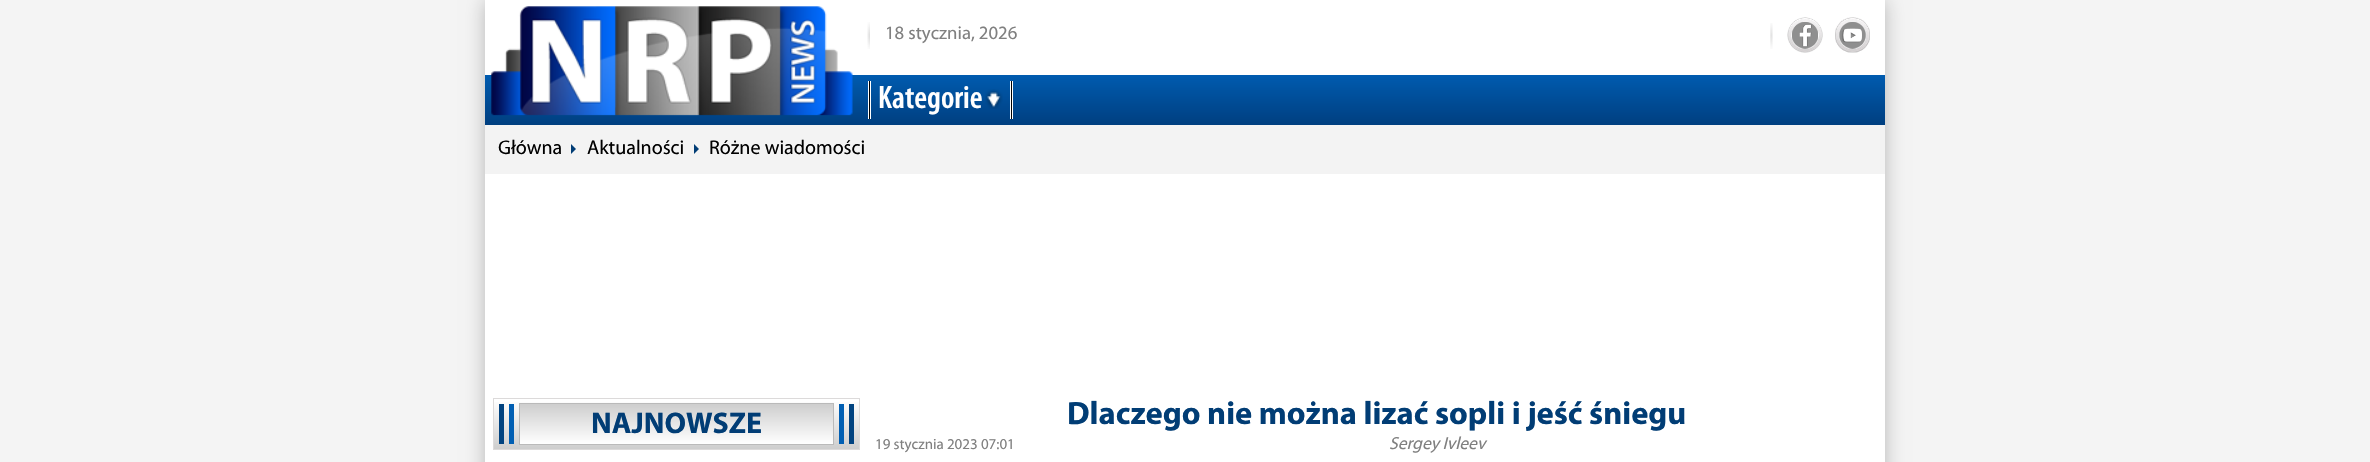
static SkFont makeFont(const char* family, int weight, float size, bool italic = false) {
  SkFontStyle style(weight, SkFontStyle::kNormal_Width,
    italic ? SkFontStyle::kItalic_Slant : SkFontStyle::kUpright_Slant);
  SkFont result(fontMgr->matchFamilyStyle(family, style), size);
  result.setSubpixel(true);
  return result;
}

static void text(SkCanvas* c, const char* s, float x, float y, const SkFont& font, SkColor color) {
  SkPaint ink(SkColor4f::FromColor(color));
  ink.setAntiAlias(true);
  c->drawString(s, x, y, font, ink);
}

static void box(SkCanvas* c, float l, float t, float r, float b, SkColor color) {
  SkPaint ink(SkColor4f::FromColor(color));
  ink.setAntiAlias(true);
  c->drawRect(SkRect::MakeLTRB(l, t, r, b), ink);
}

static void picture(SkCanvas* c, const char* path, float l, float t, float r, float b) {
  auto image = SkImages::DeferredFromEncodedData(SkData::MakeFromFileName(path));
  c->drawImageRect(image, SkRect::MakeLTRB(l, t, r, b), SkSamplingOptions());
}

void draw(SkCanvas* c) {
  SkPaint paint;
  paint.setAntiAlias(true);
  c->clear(0xfff4f4f4);
  paint.setColor(0x40000000);
  paint.setMaskFilter(SkMaskFilter::MakeBlur(kNormal_SkBlurStyle, 9.5f));
  c->drawRect(SkRect::MakeLTRB(485, 0, 1885, 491), paint);
  paint.setMaskFilter(nullptr);
  box(c, 485, 0, 1885, 462, 0xffffffff);
  {
    const SkColor colors[] = {0xff003f80, 0xff005baf};
    const float stops[] = {0, 1};
    const SkPoint ends[] = {{1185, 125}, {1185, 75}};
    paint.setShader(SkGradientShader::MakeLinear(ends, colors, stops, 2, SkTileMode::kClamp));
    paint.setAlpha(255);
  }
  c->drawRect(SkRect::MakeLTRB(485, 75, 1885, 125), paint);
  picture(c, "img_01.png", 491, 6, 853, 116);
  picture(c, "img_02.png", 867, 22, 870, 49);
  SkFont face1 = makeFont("Myriad", 400, 18.75f);
  text(c, "18 stycznia, 2026", 885, 39, face1, 0xff808080);
  picture(c, "img_03.png", 1770, 23, 1773, 49);
  picture(c, "img_04.png", 1787, 17, 1823, 53);
  picture(c, "img_05.png", 1835, 17, 1870, 53);
  box(c, 868, 81, 871, 119, 0xffffffff);
  box(c, 869, 81, 870, 119, 0xff000000);
  SkFont face2 = makeFont("Myriad", 600, 32.5f);
  text(c, "Kategorie", 878, 108, face2, 0xffffffff);
  picture(c, "img_06.png", 985, 89, 1003, 109);
  box(c, 1010, 81, 1013, 119, 0xffffffff);
  box(c, 1011, 81, 1012, 119, 0xff000000);
  box(c, 485, 125, 1885, 174, 0xfff3f3f3);
  SkFont face3 = makeFont("Myriad", 400, 20);
  text(c, "Główna", 498, 154, face3, 0xff000000);
  paint.setShader(nullptr);
  paint.setColor(0xff013d75);
  c->drawPath(SkPathBuilder().moveTo(571, 154).lineTo(571, 144).lineTo(576, 149).close().detach(), paint);
  text(c, "Aktualności", 587, 154, face3, 0xff000000);
  c->drawPath(SkPathBuilder().moveTo(694, 154).lineTo(694, 144).lineTo(699, 149).close().detach(), paint);
  text(c, "Różne wiadomości", 709, 154, face3, 0xff000000);
  {
    const SkColor colors[] = {0xffcecece, 0xffffffff};
    const float stops[] = {0, 1};
    const SkPoint ends[] = {{676, 449}, {676, 399}};
    paint.setShader(SkGradientShader::MakeLinear(ends, colors, stops, 2, SkTileMode::kClamp));
    paint.setAlpha(255);
  }
  c->drawRect(SkRect::MakeLTRB(494, 402, 859, 449), paint);
  paint.setStyle(SkPaint::kStroke_Style);
  paint.setStrokeWidth(1);
  paint.setShader(nullptr);
  paint.setColor(0xffdcdada);
  c->drawRect(SkRect::MakeLTRB(493.5f, 398.5f, 859.5f, 449.5f), paint);
  box(c, 509, 404, 514, 444, 0xff015fb3);
  box(c, 499, 404, 504, 444, 0xff014380);
  paint.setStyle(SkPaint::kFill_Style);
  {
    const SkColor colors[] = {0xffcecece, 0xffffffff};
    const float stops[] = {0, 1};
    const SkPoint ends[] = {{676, 404}, {676, 444}};
    paint.setShader(SkGradientShader::MakeLinear(ends, colors, stops, 2, SkTileMode::kClamp));
    paint.setAlpha(255);
  }
  c->drawRect(SkRect::MakeLTRB(520, 404, 833, 444), paint);
  paint.setStyle(SkPaint::kStroke_Style);
  paint.setShader(nullptr);
  paint.setColor(0xffbababa);
  c->drawRect(SkRect::MakeLTRB(519.5f, 403.5f, 833.5f, 444.5f), paint);
  SkFont face4 = makeFont("Myriad", 700, 30);
  text(c, "NAJNOWSZE", 591, 433, face4, 0xff013d75);
  box(c, 849, 404, 854, 444, 0xff014380);
  box(c, 839, 404, 844, 444, 0xff015fb3);
  SkFont face5 = makeFont("Myriad", 700, 32.5f);
  text(c, "Dlaczego nie można lizać sopli i jeść śniegu", 1067, 424, face5, 0xff013d75);
  SkFont face6 = makeFont("Myriad", 400, 15);
  text(c, "19 stycznia 2023 07:01", 875, 449, face6, 0xff808080);
  SkFont face7 = makeFont("Myriad", 400, 17.5f, true);
  text(c, "Sergey Ivleev", 1389, 449, face7, 0xff808080);
}
